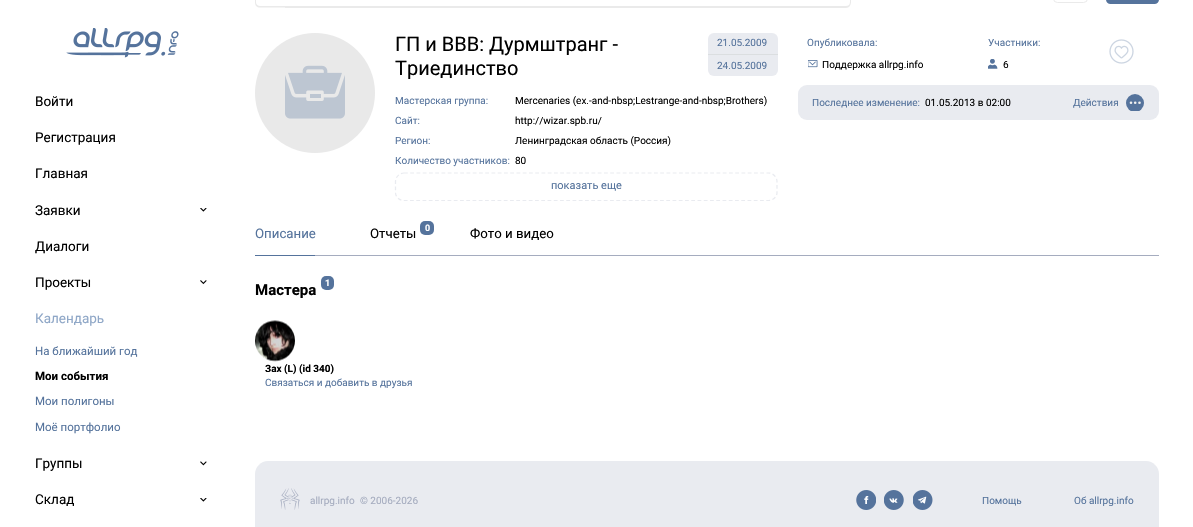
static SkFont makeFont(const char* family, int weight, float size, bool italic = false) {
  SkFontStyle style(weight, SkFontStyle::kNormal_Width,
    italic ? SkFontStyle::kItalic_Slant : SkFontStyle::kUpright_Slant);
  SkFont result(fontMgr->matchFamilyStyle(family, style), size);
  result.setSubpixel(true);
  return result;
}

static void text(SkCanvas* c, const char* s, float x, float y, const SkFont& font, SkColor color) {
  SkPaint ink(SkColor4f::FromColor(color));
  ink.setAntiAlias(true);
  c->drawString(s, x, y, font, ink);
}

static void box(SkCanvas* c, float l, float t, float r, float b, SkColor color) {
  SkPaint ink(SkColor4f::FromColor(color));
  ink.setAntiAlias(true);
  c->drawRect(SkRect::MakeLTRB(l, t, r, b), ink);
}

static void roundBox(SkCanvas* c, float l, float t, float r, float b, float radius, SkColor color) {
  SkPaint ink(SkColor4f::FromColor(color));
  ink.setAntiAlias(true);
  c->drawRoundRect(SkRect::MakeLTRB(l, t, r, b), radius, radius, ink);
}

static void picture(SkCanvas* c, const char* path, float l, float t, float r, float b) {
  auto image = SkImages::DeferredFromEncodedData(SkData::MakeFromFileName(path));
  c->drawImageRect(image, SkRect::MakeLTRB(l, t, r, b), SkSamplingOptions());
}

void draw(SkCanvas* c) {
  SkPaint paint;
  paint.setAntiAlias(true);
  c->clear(0xffffffff);
  picture(c, "img_01.png", 66, 28, 179, 58);
  SkFont face1 = makeFont("Roboto", 400, 13.5f);
  text(c, "Войти", 35, 106, face1, 0xff000000);
  text(c, "Регистрация", 35, 142, face1, 0xff000000);
  text(c, "Главная", 35, 178, face1, 0xff000000);
  picture(c, "img_02.png", 200, 208, 207, 212);
  text(c, "Заявки", 35, 215, face1, 0xff000000);
  text(c, "Диалоги", 35, 251, face1, 0xff000000);
  picture(c, "img_03.png", 200, 280, 207, 285);
  text(c, "Проекты", 35, 287, face1, 0xff000000);
  text(c, "Календарь", 35, 323, face1, 0xff8fa7c7);
  SkFont face2 = makeFont("Roboto", 400, 11.5f);
  text(c, "На ближайший год", 35, 355, face2, 0xff55739c);
  SkFont face3 = makeFont("Roboto", 700, 11.5f);
  text(c, "Мои события", 35, 380, face3, 0xff000000);
  text(c, "Мои полигоны", 35, 405, face2, 0xff55739c);
  text(c, "Моё портфолио", 35, 431, face2, 0xff55739c);
  picture(c, "img_04.png", 200, 461, 207, 466);
  text(c, "Группы", 35, 468, face1, 0xff000000);
  picture(c, "img_02.png", 200, 498, 207, 502);
  text(c, "Склад", 35, 504, face1, 0xff000000);
  paint.setColor(0xffeaeaea);
  c->drawPath(SkPathBuilder(SkPathFillType::kEvenOdd).moveTo(260, -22.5f).lineTo(285, -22.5f).lineTo(285, 7.5f).lineTo(260, 7.5f).cubicTo(257, 7.5f, 255, 5.5f, 255, 2.5f).lineTo(255, -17.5f).cubicTo(255, -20.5f, 257, -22.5f, 260, -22.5f).close().moveTo(260, -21).lineTo(285, -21).lineTo(285, 6).lineTo(260, 6).cubicTo(258, 6, 256, 4.5f, 256, 2.5f).lineTo(256, -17.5f).cubicTo(256, -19.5f, 258, -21, 260, -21).close().detach(), paint);
  c->drawPath(SkPathBuilder(SkPathFillType::kEvenOdd).moveTo(285, -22).lineTo(846, -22).cubicTo(849, -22, 851, -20, 851, -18).lineTo(851, 2).cubicTo(851, 5, 849, 8, 846, 8).lineTo(285, 8).close().moveTo(285, -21).lineTo(846, -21).cubicTo(848, -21, 850, -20, 850, -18).lineTo(850, 2).cubicTo(850, 5, 848, 6, 846, 6).lineTo(285, 6).close().detach(), paint);
  paint.setStyle(SkPaint::kStroke_Style);
  paint.setStrokeWidth(1);
  c->drawRoundRect(SkRect::MakeLTRB(1053.5f, -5.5f, 1087.5f, 2.5f), 4.5f, 4.5f, paint);
  roundBox(c, 1106, -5, 1159, 4, 5, 0xff55739c);
  picture(c, "img_05.png", 255, 33, 375, 153);
  SkFont face4 = makeFont("Roboto", 400, 20);
  text(c, "ГП и ВВВ: Дурмштранг -", 395, 51, face4, 0xff000000);
  text(c, "Триединство", 395, 75, face4, 0xff000000);
  roundBox(c, 708, 33, 778, 76, 6, 0xffe9ebf0);
  SkFont face5 = makeFont("Roboto", 400, 10);
  text(c, "21.05.2009", 717, 46, face5, 0xff55739c);
  box(c, 708, 54, 778, 55, 0xffdbdee0);
  text(c, "24.05.2009", 717, 69, face5, 0xff55739c);
  text(c, "Мастерская группа:", 395, 104, face5, 0xff55739c);
  text(c, "Mercenaries (ex.-and-nbsp;Lestrange-and-nbsp;Brothers)", 515, 104, face5, 0xff000000);
  text(c, "Сайт:", 395, 124, face5, 0xff55739c);
  text(c, "http://wizar.spb.ru/", 515, 124, face5, 0xff000000);
  text(c, "Регион:", 395, 144, face5, 0xff55739c);
  text(c, "Ленинградская область (Россия)", 515, 144, face5, 0xff000000);
  text(c, "Количество участников:", 395, 164, face5, 0xff55739c);
  text(c, "80", 515, 164, face5, 0xff000000);
  paint.setStrokeWidth(1.2f);
  paint.setColor(0xffe9ebf0);
  paint.setPathEffect(SkDashPathEffect::Make({{3.75f, 2.5f}}, 0));
  c->drawPath(SkPathBuilder().moveTo(404, 173).lineTo(768.5f, 173).cubicTo(773, 173, 777, 177, 777, 181.5f).lineTo(777, 192.5f).cubicTo(777, 197, 773, 200.5f, 768.5f, 200.5f).lineTo(404, 200.5f).cubicTo(399.5f, 200.5f, 395.5f, 197, 395.5f, 192.5f).lineTo(395.5f, 181.5f).cubicTo(395.5f, 177, 399.5f, 173, 404, 173).close().detach(), paint);
  paint.setPathEffect(nullptr);
  SkFont face6 = makeFont("Roboto", 400, 11);
  text(c, "показать еще", 551, 189, face6, 0xff55739c);
  text(c, "Опубликовала:", 807, 46, face5, 0xff55739c);
  picture(c, "img_06.png", 808, 60, 818, 68);
  text(c, "Поддержка allrpg.info", 822, 68, face5, 0xff000000);
  text(c, "Участники:", 988, 46, face5, 0xff55739c);
  picture(c, "img_07.png", 988, 59, 998, 69);
  text(c, "6", 1003, 68, face5, 0xff000000);
  picture(c, "img_08.png", 1109, 39, 1134, 64);
  roundBox(c, 798, 85, 1159, 120, 9, 0xffe9ebf0);
  text(c, "Последнее изменение:", 812, 106, face5, 0xff55739c);
  text(c, "01.05.2013 в 02:00", 925, 106, face5, 0xff000000);
  text(c, "Действия", 1073, 106, face5, 0xff55739c);
  c->save();
  c->clipRect(SkRect::MakeLTRB(1126, 94, 1144, 111));
  paint.setStyle(SkPaint::kFill_Style);
  paint.setColor(0xff55739c);
  c->drawCircle(1135, 103, 9, paint);
  c->restore();
  paint.setColor(0xfff1f1f1);
  c->drawCircle(1131, 102.7f, 1.3f, paint);
  c->drawCircle(1135.2f, 102.7f, 1.3f, paint);
  c->drawCircle(1139.5f, 102.7f, 1.3f, paint);
  box(c, 315, 255, 1159, 256, 0xffa5acbf);
  box(c, 255, 255, 315, 256, 0xff55739c);
  SkFont face7 = makeFont("Roboto", 400, 13.25f);
  text(c, "Описание", 255, 238, face7, 0xff55739c);
  text(c, "Отчеты", 370, 238, face7, 0xff000000);
  roundBox(c, 420, 221, 434, 235, 5, 0xff55739c);
  SkFont face8 = makeFont("Roboto", 700, 9);
  text(c, "0", 425, 231, face8, 0xffffffff);
  text(c, "Фото и видео", 470, 238, face7, 0xff000000);
  roundBox(c, 321, 276, 334, 290, 5, 0xff55739c);
  text(c, "1", 325, 286, face8, 0xffffffff);
  SkFont face9 = makeFont("Roboto", 700, 15);
  text(c, "Мастера", 255, 295, face9, 0xff000000);
  picture(c, "img_09.png", 255, 320, 295, 362);
  SkFont face10 = makeFont("Roboto", 700, 10);
  text(c, "Зах (L) (id 340)", 265, 372, face10, 0xff000000);
  text(c, "Связаться и добавить в друзья", 265, 386, face5, 0xff55739c);
  paint.setColor(0xffe9ebf0);
  c->drawPath(SkPathBuilder().moveTo(268, 461).lineTo(1146, 461).cubicTo(1153, 461, 1159, 467, 1159, 474).lineTo(1159, 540).lineTo(255, 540).lineTo(255, 474).cubicTo(255, 467, 261, 461, 268, 461).close().detach(), paint);
  picture(c, "img_10.png", 280, 488, 300, 510);
  text(c, "allrpg.info", 310, 504, face5, 0xffa5acbf);
  text(c, "© 2006-2026", 360, 504, face5, 0xffa5acbf);
  picture(c, "img_11.png", 856, 490, 876, 510);
  picture(c, "img_12.png", 884, 490, 904, 510);
  picture(c, "img_13.png", 913, 490, 933, 510);
  text(c, "Помощь", 982, 504, face5, 0xff55739c);
  text(c, "Об allrpg.info", 1074, 504, face5, 0xff55739c);
}
